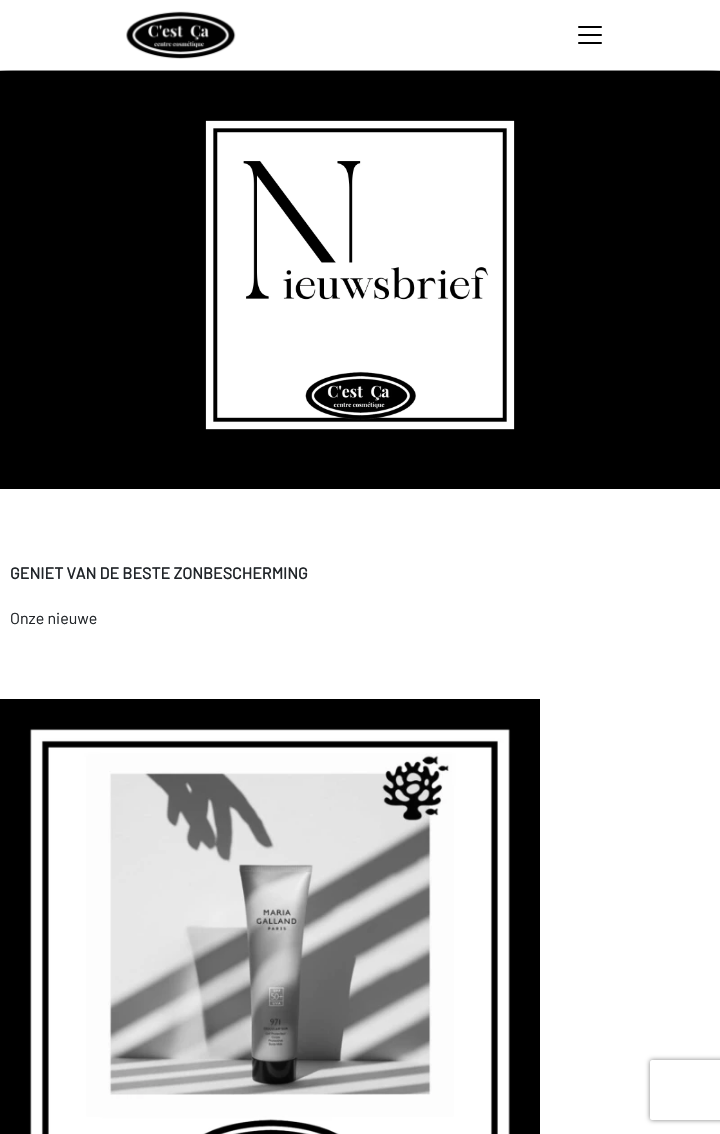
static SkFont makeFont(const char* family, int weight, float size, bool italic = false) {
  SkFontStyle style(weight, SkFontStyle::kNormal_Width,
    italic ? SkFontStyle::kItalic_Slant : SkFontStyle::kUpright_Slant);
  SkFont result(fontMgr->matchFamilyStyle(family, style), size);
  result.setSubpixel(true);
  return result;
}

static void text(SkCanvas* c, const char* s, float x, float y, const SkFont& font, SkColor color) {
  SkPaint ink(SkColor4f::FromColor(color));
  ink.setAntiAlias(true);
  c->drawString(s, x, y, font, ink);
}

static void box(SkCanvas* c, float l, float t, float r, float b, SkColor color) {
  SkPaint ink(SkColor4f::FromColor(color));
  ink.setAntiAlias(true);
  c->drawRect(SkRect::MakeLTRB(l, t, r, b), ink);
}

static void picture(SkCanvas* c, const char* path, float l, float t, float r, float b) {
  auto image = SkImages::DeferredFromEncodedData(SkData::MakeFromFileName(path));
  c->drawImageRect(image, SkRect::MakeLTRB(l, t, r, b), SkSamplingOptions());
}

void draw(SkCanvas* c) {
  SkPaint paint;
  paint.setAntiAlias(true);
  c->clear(0xffffffff);
  box(c, 0, 71, 720, 489, 0xff000000);
  c->save();
  c->clipRect(SkRect::MakeLTRB(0, 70, 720, 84));
  paint.setColor(0xcc000000);
  paint.setMaskFilter(SkMaskFilter::MakeBlur(kNormal_SkBlurStyle, 6));
  c->drawRect(SkRect::MakeLTRB(0, 2, 720, 72), paint);
  paint.setMaskFilter(nullptr);
  c->restore();
  picture(c, "img_01.png", 126, 11, 236, 59);
  picture(c, "img_02.png", 578, 26, 602, 44);
  picture(c, "img_03.png", 205, 120, 515, 430);
  SkFont face1 = makeFont("Barlow", 700, 16);
  text(c, "GENIET VAN DE BESTE ZONBESCHERMING", 10, 579, face1, 0xff212529);
  SkFont face2 = makeFont("Barlow", 400, 16);
  text(c, "Onze nieuwe", 10, 624, face2, 0xff212529);
  picture(c, "img_04.png", 0, 699, 540, 1134);
  c->save();
  c->clipPath(SkPathBuilder(SkPathFillType::kEvenOdd).moveTo(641, 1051).lineTo(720, 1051).lineTo(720, 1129).lineTo(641, 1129).close().moveTo(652, 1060).lineTo(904, 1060).cubicTo(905, 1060, 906, 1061, 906, 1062).lineTo(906, 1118).cubicTo(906, 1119, 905, 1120, 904, 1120).lineTo(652, 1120).cubicTo(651, 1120, 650, 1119, 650, 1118).lineTo(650, 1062).cubicTo(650, 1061, 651, 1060, 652, 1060).close().detach(), true);
  paint.setColor(0xff808080);
  paint.setMaskFilter(SkMaskFilter::MakeBlur(kNormal_SkBlurStyle, 2.5f));
  c->drawRoundRect(SkRect::MakeLTRB(650, 1060, 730, 1120), 2, 2, paint);
  paint.setMaskFilter(nullptr);
  c->restore();
}
